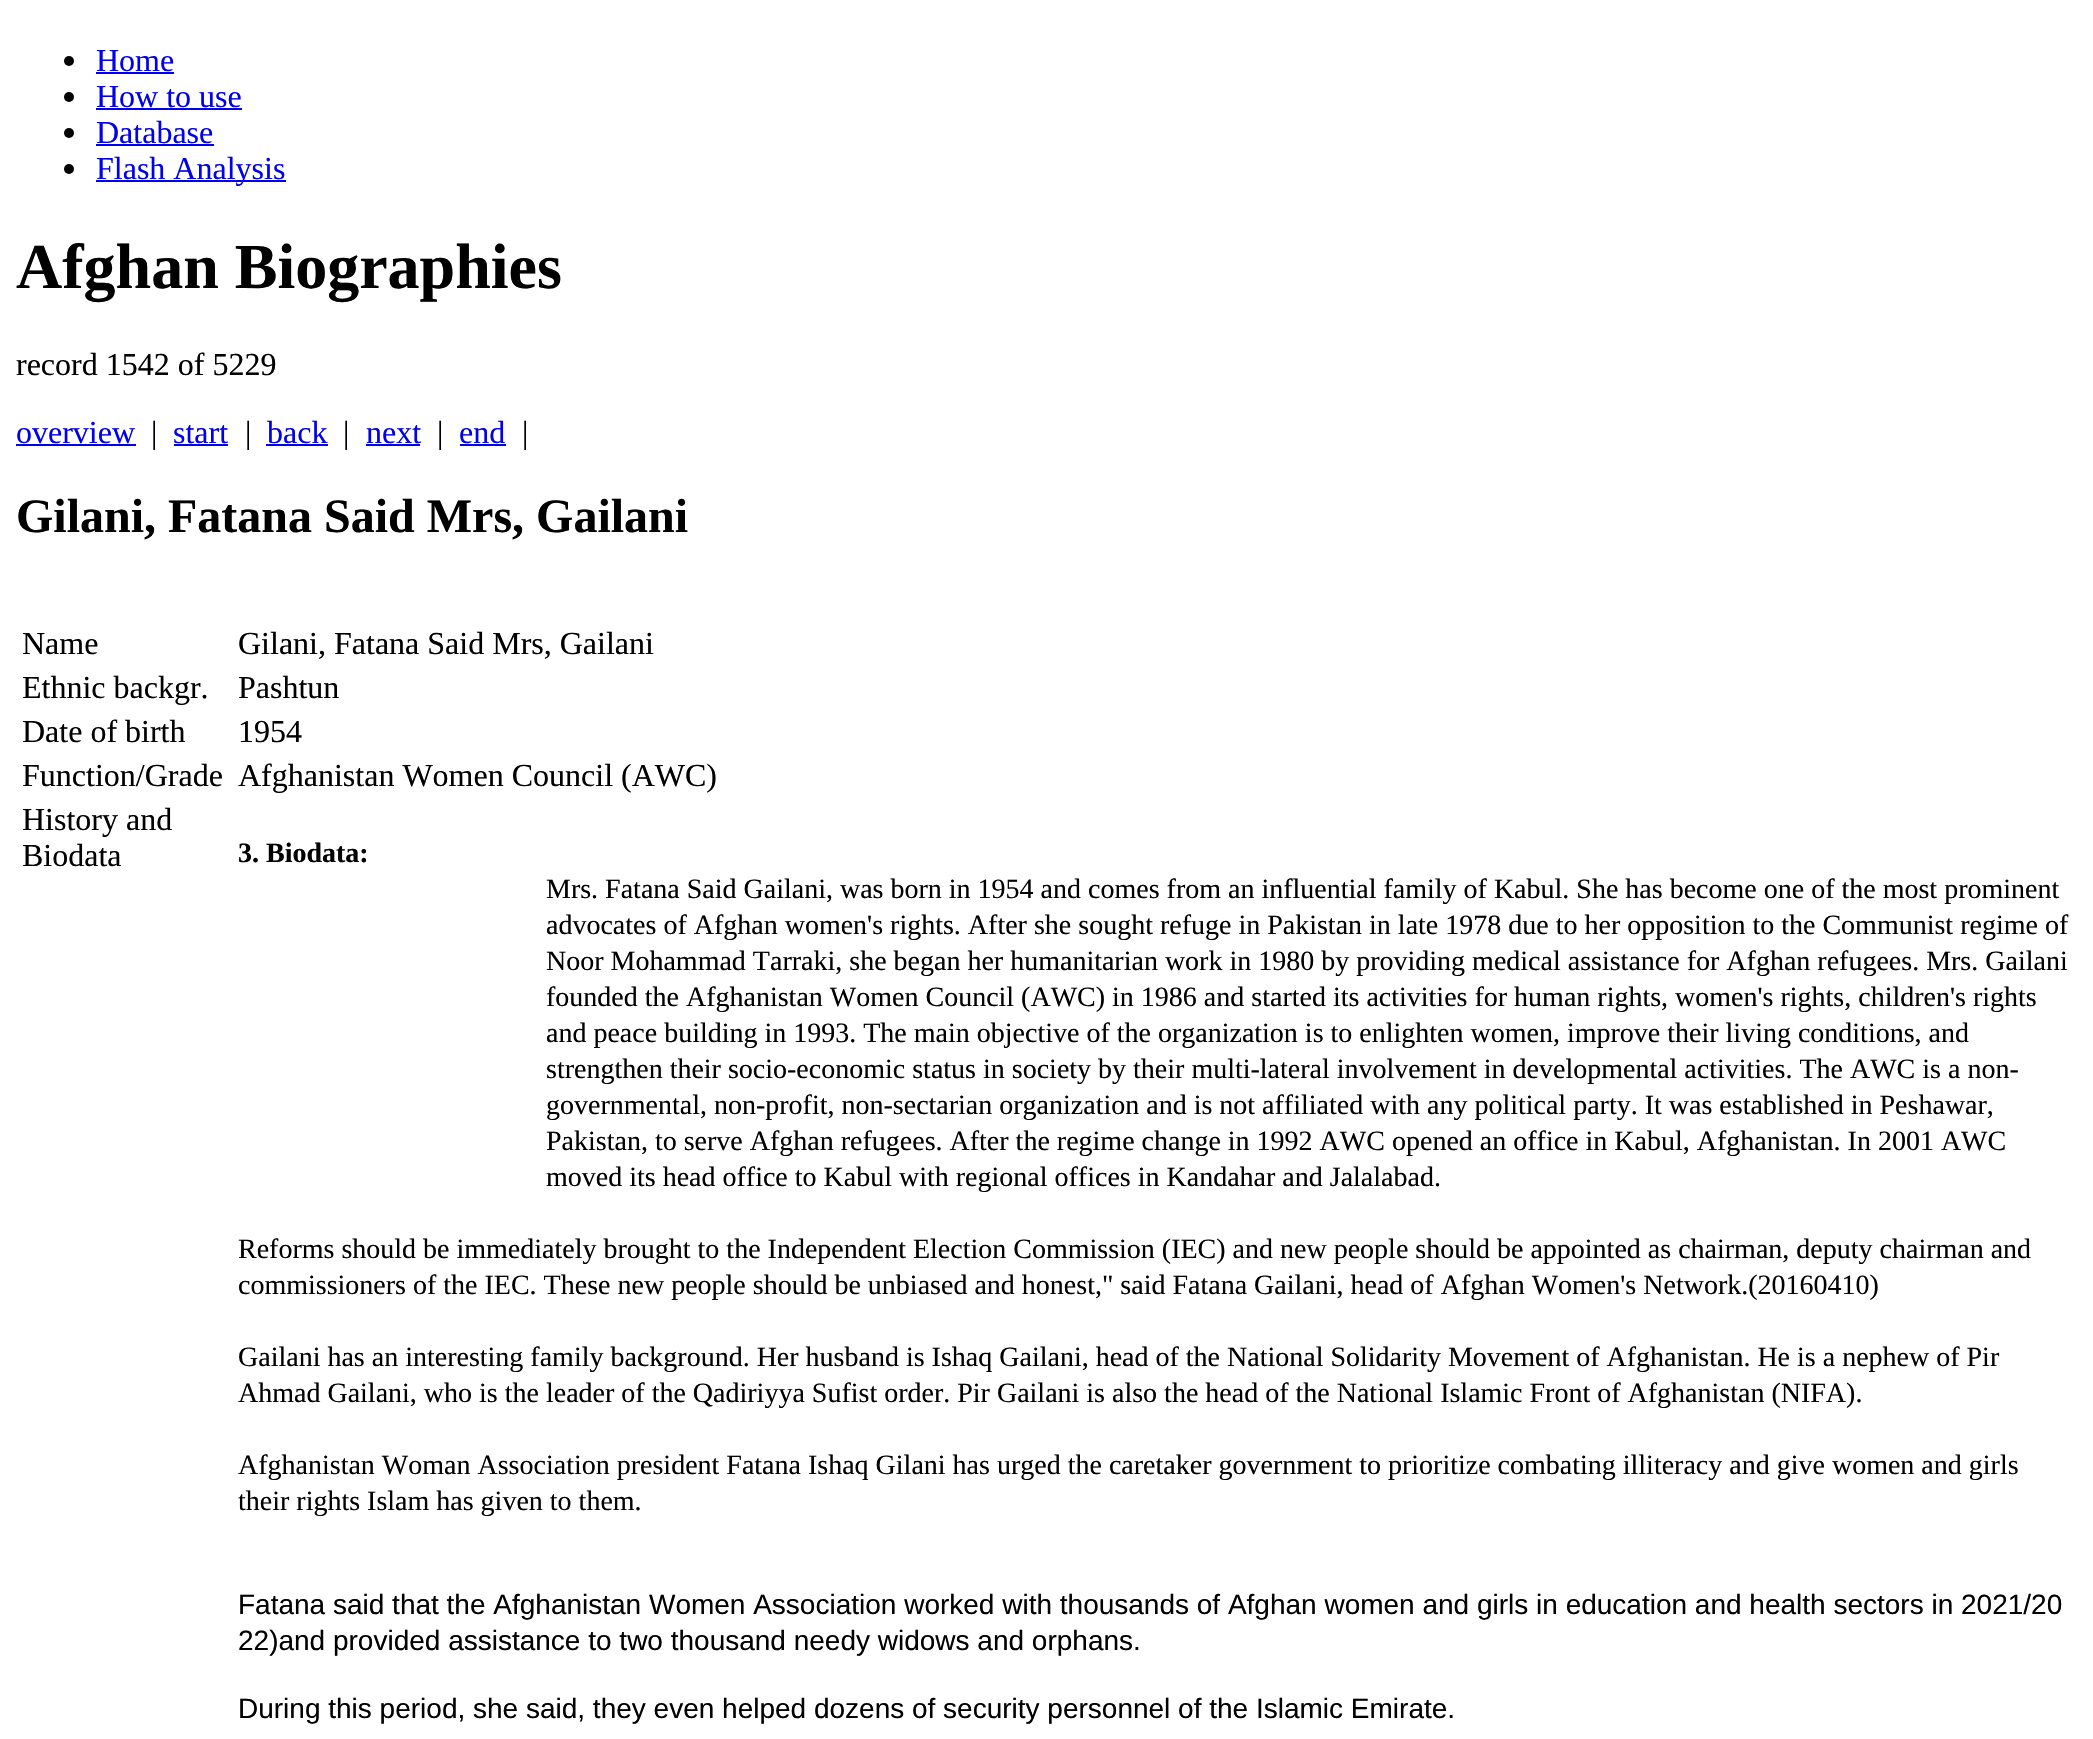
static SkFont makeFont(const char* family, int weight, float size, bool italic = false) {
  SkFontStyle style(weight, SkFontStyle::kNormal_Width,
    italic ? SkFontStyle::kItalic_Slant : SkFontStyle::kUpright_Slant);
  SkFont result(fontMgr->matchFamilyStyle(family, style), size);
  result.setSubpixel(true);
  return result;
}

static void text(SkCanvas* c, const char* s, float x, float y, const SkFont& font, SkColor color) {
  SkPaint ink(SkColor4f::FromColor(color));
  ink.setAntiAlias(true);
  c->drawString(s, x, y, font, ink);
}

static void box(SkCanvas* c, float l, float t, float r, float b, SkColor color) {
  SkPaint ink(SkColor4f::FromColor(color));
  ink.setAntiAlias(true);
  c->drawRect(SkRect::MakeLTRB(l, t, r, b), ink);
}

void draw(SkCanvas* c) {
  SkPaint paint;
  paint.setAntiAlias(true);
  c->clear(0xffffffff);
  paint.setColor(0xff000000);
  c->drawCircle(69, 61, 5, paint);
  SkFont face1 = makeFont("Liberation Serif", 400, 32);
  text(c, "Home", 96, 71, face1, 0xff0000ee);
  box(c, 96, 72, 174, 74, 0xff0000ee);
  c->drawCircle(69, 97, 5, paint);
  text(c, "How to use", 96, 107, face1, 0xff0000ee);
  box(c, 96, 108, 242, 110, 0xff0000ee);
  c->drawCircle(69, 133, 5, paint);
  text(c, "Database", 96, 143, face1, 0xff0000ee);
  box(c, 96, 144, 214, 146, 0xff0000ee);
  c->drawCircle(69, 169, 5, paint);
  box(c, 96, 180, 286, 182, 0xff0000ee);
  text(c, "Flash Analysis", 96, 179, face1, 0xff0000ee);
  SkFont face2 = makeFont("Liberation Serif", 700, 64);
  text(c, "Afghan Biographies", 16, 288, face2, 0xff000000);
  text(c, "record 1542 of 5229", 16, 375, face1, 0xff000000);
  text(c, "overview", 16, 443, face1, 0xff0000ee);
  box(c, 16, 444, 136, 446, 0xff0000ee);
  text(c, "|", 151, 443, face1, 0xff000000);
  text(c, "start", 173, 443, face1, 0xff0000ee);
  box(c, 174, 444, 228, 446, 0xff0000ee);
  text(c, "|", 245, 443, face1, 0xff000000);
  text(c, "back", 267, 443, face1, 0xff0000ee);
  box(c, 266, 444, 328, 446, 0xff0000ee);
  text(c, "|", 343, 443, face1, 0xff000000);
  text(c, "next", 366, 443, face1, 0xff0000ee);
  box(c, 366, 444, 420, 446, 0xff0000ee);
  text(c, "|", 437, 443, face1, 0xff000000);
  text(c, "end", 459, 443, face1, 0xff0000ee);
  box(c, 460, 444, 506, 446, 0xff0000ee);
  text(c, "|", 522, 443, face1, 0xff000000);
  SkFont face3 = makeFont("Liberation Serif", 700, 48);
  text(c, "Gilani, Fatana Said Mrs, Gailani", 16, 532, face3, 0xff000000);
  text(c, "Name", 22, 654, face1, 0xff000000);
  text(c, "Gilani, Fatana Said Mrs, Gailani", 238, 654, face1, 0xff000000);
  text(c, "Ethnic backgr.", 22, 698, face1, 0xff000000);
  text(c, "Pashtun", 238, 698, face1, 0xff000000);
  text(c, "Date of birth", 22, 742, face1, 0xff000000);
  text(c, "1954", 238, 742, face1, 0xff000000);
  text(c, "Function/Grade", 22, 786, face1, 0xff000000);
  text(c, "Afghanistan Women Council (AWC)", 238, 786, face1, 0xff000000);
  text(c, "History and", 22, 830, face1, 0xff000000);
  text(c, "Biodata", 22, 866, face1, 0xff000000);
  SkFont face4 = makeFont("Liberation Serif", 700, 28);
  text(c, "3. Biodata:", 238, 862, face4, 0xff000000);
  SkFont face5 = makeFont("Liberation Serif", 400, 28);
  text(c, "Mrs. Fatana Said Gailani, was born in 1954 and comes from an influential family of Kabul. She has become one of the most prominent", 546, 898, face5, 0xff000000);
  text(c, "advocates of Afghan women's rights. After she sought refuge in Pakistan in late 1978 due to her opposition to the Communist regime of", 546, 934, face5, 0xff000000);
  text(c, "Noor Mohammad Tarraki, she began her humanitarian work in 1980 by providing medical assistance for Afghan refugees. Mrs. Gailani", 546, 970, face5, 0xff000000);
  text(c, "founded the Afghanistan Women Council (AWC) in 1986 and started its activities for human rights, women's rights, children's rights", 546, 1006, face5, 0xff000000);
  text(c, "and peace building in 1993. The main objective of the organization is to enlighten women, improve their living conditions, and", 546, 1042, face5, 0xff000000);
  text(c, "strengthen their socio-economic status in society by their multi-lateral involvement in developmental activities. The AWC is a non-", 546, 1078, face5, 0xff000000);
  text(c, "governmental, non-profit, non-sectarian organization and is not affiliated with any political party. It was established in Peshawar,", 546, 1114, face5, 0xff000000);
  text(c, "Pakistan, to serve Afghan refugees. After the regime change in 1992 AWC opened an office in Kabul, Afghanistan. In 2001 AWC", 546, 1150, face5, 0xff000000);
  text(c, "moved its head office to Kabul with regional offices in Kandahar and Jalalabad.", 546, 1186, face5, 0xff000000);
  text(c, "Reforms should be immediately brought to the Independent Election Commission (IEC) and new people should be appointed as chairman, deputy chairman and", 238, 1258, face5, 0xff000000);
  text(c, "commissioners of the IEC. These new people should be unbiased and honest,\" said Fatana Gailani, head of Afghan Women's Network.(20160410)", 238, 1294, face5, 0xff000000);
  text(c, "Gailani has an interesting family background. Her husband is Ishaq Gailani, head of the National Solidarity Movement of Afghanistan. He is a nephew of Pir", 238, 1366, face5, 0xff000000);
  text(c, "Ahmad Gailani, who is the leader of the Qadiriyya Sufist order. Pir Gailani is also the head of the National Islamic Front of Afghanistan (NIFA).", 238, 1402, face5, 0xff000000);
  text(c, "Afghanistan Woman Association president Fatana Ishaq Gilani has urged the caretaker government to prioritize combating illiteracy and give women and girls", 238, 1474, face5, 0xff000000);
  text(c, "their rights Islam has given to them.", 238, 1510, face5, 0xff000000);
  SkFont face6 = makeFont("Liberation Sans", 400, 28);
  text(c, "Fatana said that the Afghanistan Women Association worked with thousands of Afghan women and girls in education and health sectors in 2021/20", 238, 1614, face6, 0xff000000);
  text(c, "22)and provided assistance to two thousand needy widows and orphans.", 238, 1650, face6, 0xff000000);
  text(c, "During this period, she said, they even helped dozens of security personnel of the Islamic Emirate.", 238, 1718, face6, 0xff000000);
}
